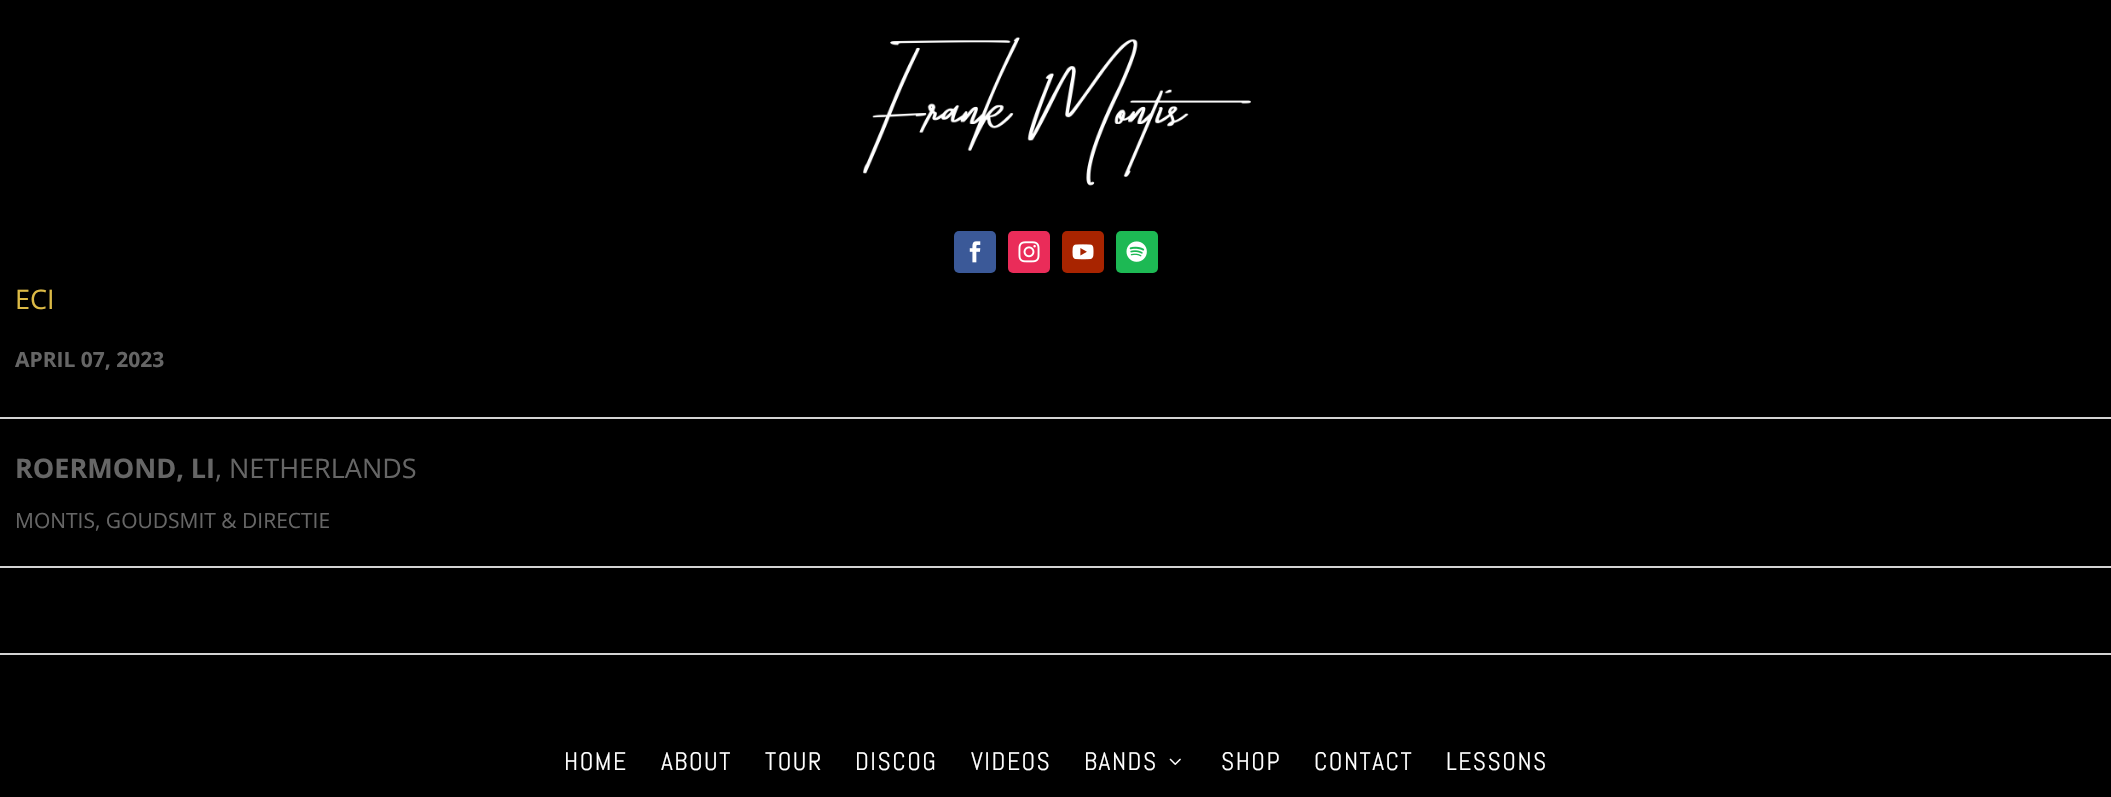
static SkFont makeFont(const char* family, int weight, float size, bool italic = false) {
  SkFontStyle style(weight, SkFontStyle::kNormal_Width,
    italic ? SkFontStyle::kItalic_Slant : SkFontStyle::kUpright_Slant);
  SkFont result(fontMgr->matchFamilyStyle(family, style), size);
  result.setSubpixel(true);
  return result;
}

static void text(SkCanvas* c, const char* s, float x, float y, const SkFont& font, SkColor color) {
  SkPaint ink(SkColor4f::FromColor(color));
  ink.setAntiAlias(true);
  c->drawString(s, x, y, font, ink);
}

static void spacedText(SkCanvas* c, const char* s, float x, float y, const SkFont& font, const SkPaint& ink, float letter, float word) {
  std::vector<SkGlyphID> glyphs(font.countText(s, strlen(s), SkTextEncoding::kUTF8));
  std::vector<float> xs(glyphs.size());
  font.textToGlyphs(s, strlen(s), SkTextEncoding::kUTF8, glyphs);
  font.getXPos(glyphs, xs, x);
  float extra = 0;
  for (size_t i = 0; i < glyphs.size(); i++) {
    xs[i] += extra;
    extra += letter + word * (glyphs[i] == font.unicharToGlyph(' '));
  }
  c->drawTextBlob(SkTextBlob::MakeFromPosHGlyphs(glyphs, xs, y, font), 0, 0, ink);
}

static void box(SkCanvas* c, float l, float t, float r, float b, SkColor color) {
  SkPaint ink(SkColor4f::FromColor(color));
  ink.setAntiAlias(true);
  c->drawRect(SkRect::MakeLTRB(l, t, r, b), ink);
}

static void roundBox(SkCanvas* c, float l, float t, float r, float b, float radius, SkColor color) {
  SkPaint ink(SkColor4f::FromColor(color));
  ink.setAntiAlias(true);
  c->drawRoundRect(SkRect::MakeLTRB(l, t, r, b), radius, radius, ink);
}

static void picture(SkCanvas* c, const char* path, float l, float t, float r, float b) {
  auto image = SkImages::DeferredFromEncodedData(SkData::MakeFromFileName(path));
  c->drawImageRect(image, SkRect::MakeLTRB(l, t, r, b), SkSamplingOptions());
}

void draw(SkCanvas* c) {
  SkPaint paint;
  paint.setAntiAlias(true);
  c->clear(0xff000000);
  picture(c, "img_01.png", 863, 37, 1251, 186);
  roundBox(c, 954, 231, 996, 273, 5, 0xff3b5998);
  picture(c, "img_02.png", 969, 241, 981, 263);
  roundBox(c, 1008, 231, 1050, 273, 5, 0xffea2c59);
  picture(c, "img_03.png", 1018, 241, 1040, 263);
  roundBox(c, 1062, 231, 1104, 273, 5, 0xffa82400);
  picture(c, "img_04.png", 1072, 244, 1094, 260);
  roundBox(c, 1116, 231, 1158, 273, 5, 0xff1db954);
  picture(c, "img_05.png", 1126, 241, 1147, 262);
  box(c, 0, 417, 2111, 419, 0xffd3d3d3);
  SkFont face1 = makeFont("Open Sans", 400, 27);
  text(c, "ECI", 15, 309, face1, 0xffdcba46);
  SkFont face2 = makeFont("Open Sans", 700, 21);
  text(c, "APRIL 07, 2023", 15, 367, face2, 0xff666666);
  box(c, 0, 566, 2111, 568, 0xffd3d3d3);
  SkFont face3 = makeFont("Open Sans", 700, 27);
  text(c, "ROERMOND, LI", 15, 478, face3, 0xff666666);
  text(c, ", NETHERLANDS", 215, 478, face1, 0xff666666);
  SkFont face4 = makeFont("Open Sans", 400, 21);
  text(c, "MONTIS, GOUDSMIT & DIRECTIE", 15, 528, face4, 0xff666666);
  box(c, 0, 653, 2111, 655, 0xffd3d3d3);
  SkFont face5 = makeFont("Abel", 400, 25.5f);
  paint.setColor(0xffffffff);
  spacedText(c, "HOME", 564, 770, face5, paint, 1.5f, 0);
  spacedText(c, "ABOUT", 661, 770, face5, paint, 1.5f, 0);
  spacedText(c, "TOUR", 765, 770, face5, paint, 1.5f, 0);
  spacedText(c, "DISCOG", 855, 770, face5, paint, 1.5f, 0);
  spacedText(c, "VIDEOS", 971, 770, face5, paint, 1.5f, 0);
  spacedText(c, "BANDS", 1084, 770, face5, paint, 1.5f, 0);
  picture(c, "img_06.png", 1169, 758, 1181, 765);
  spacedText(c, "SHOP", 1221, 770, face5, paint, 1.5f, 0);
  spacedText(c, "CONTACT", 1314, 770, face5, paint, 1.5f, 0);
  spacedText(c, "LESSONS", 1446, 770, face5, paint, 1.5f, 0);
}
